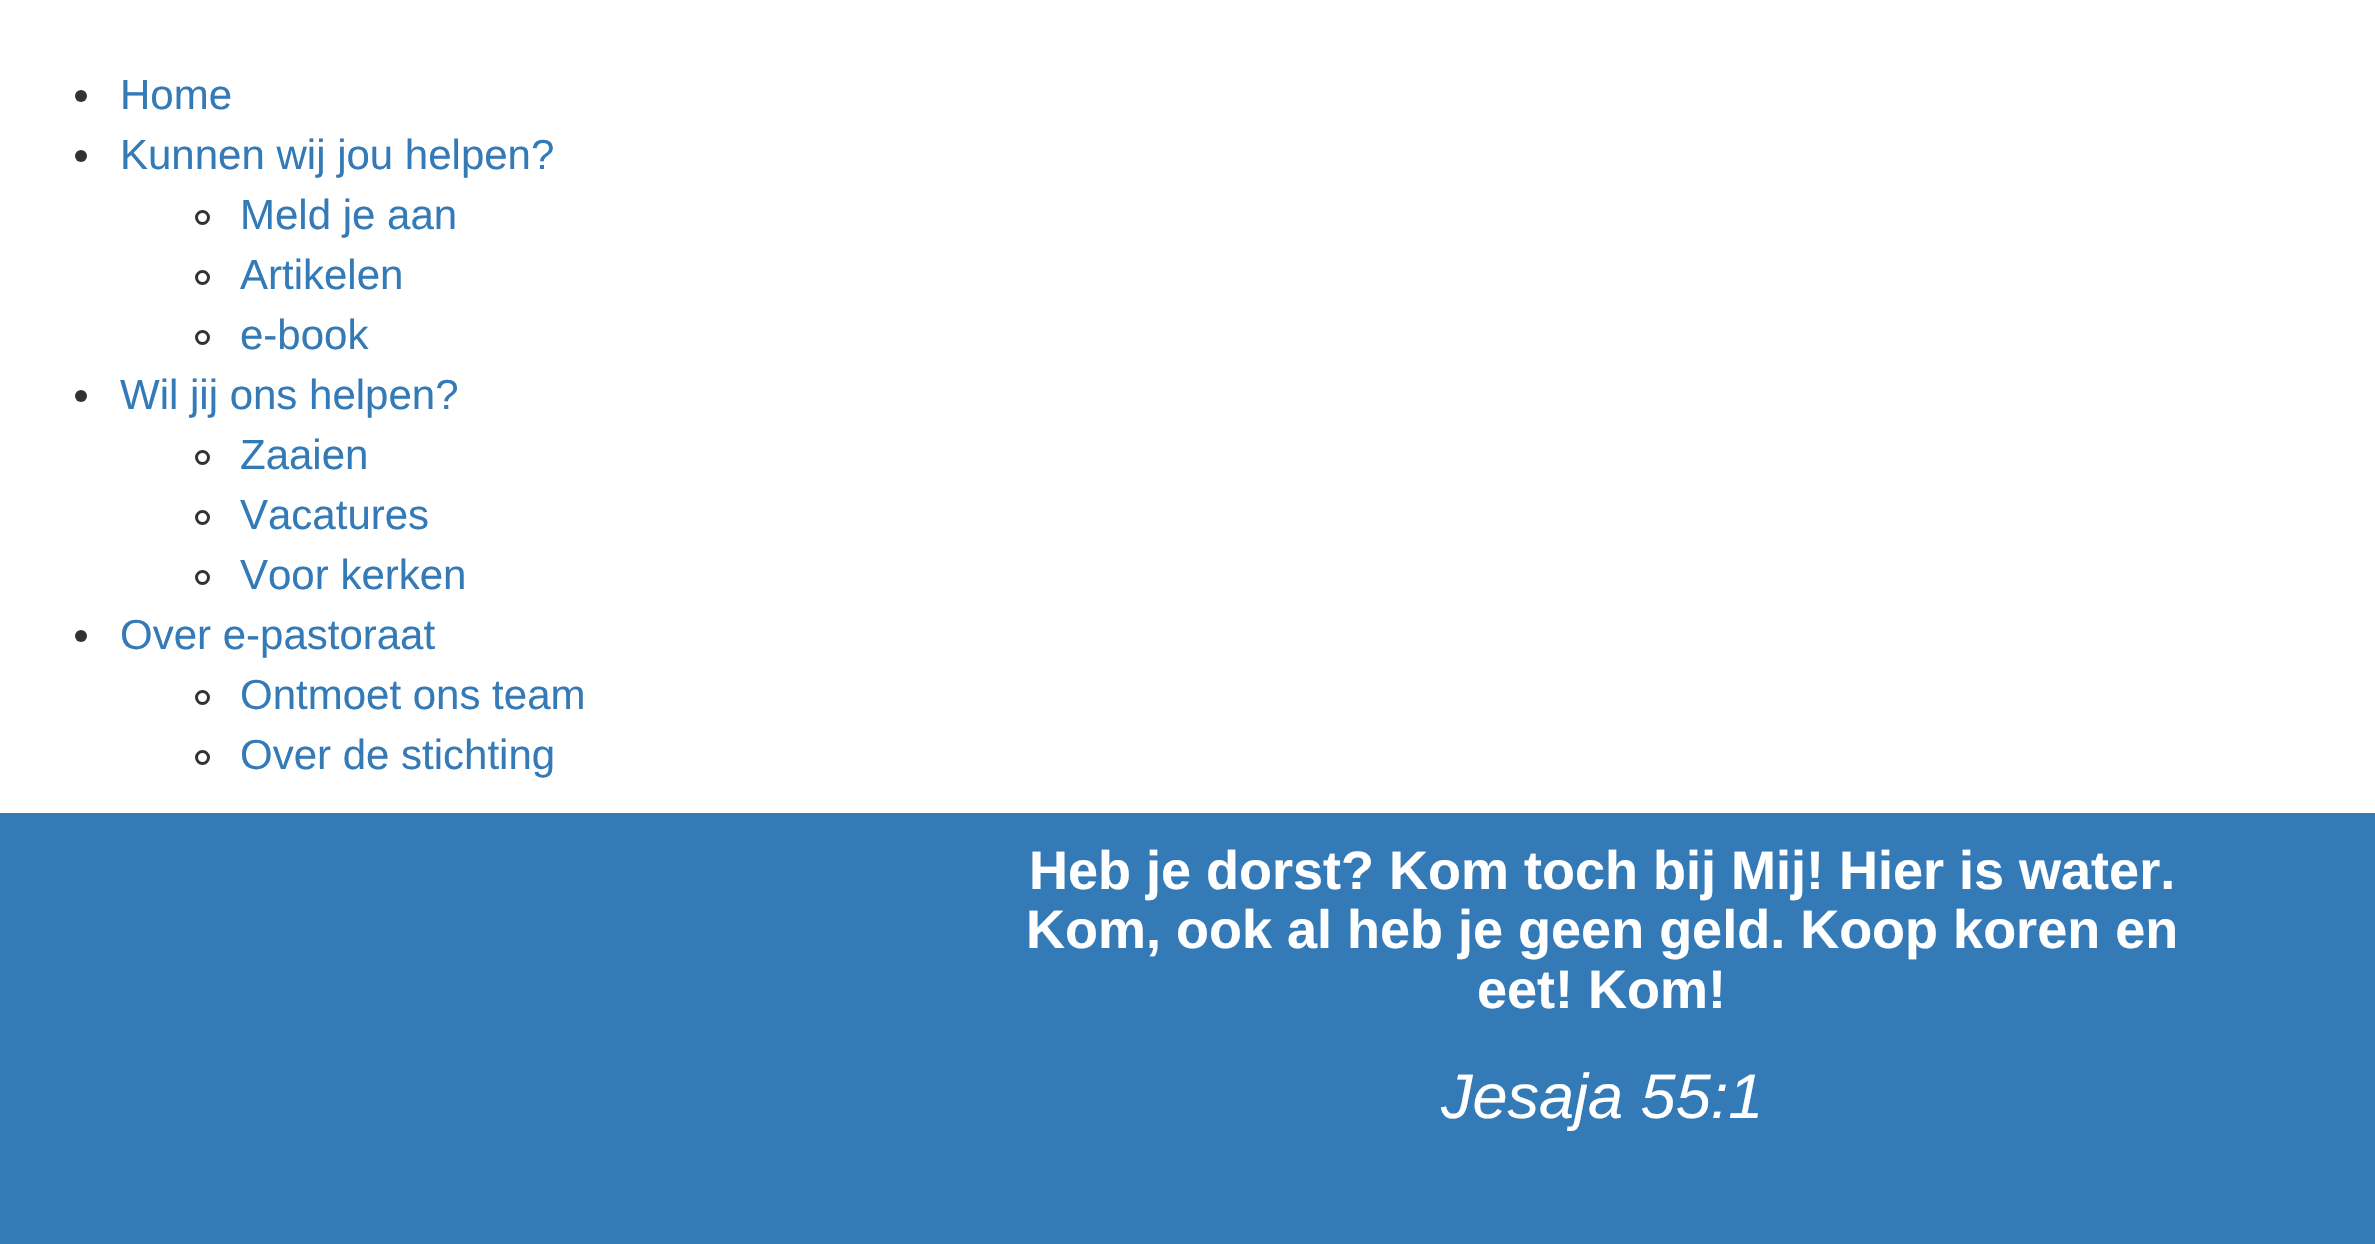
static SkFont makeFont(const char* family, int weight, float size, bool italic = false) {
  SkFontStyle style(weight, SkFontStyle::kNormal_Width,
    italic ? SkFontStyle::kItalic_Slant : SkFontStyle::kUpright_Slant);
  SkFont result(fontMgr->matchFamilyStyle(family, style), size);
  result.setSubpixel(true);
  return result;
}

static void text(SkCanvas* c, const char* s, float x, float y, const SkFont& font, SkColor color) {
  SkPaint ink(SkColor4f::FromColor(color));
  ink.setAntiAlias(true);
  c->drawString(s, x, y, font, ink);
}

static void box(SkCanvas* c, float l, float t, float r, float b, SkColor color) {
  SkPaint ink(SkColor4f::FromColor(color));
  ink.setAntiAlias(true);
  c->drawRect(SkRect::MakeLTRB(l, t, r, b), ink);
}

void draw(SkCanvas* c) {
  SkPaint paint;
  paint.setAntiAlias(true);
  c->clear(0xffffffff);
  paint.setColor(0xff333333);
  c->drawCircle(81, 96, 6, paint);
  SkFont face1 = makeFont("Liberation Sans", 400, 42);
  text(c, "Home", 120, 109, face1, 0xff337ab7);
  c->drawCircle(81, 156, 6, paint);
  text(c, "Kunnen wij jou helpen?", 120, 169, face1, 0xff337ab7);
  paint.setStyle(SkPaint::kStroke_Style);
  paint.setStrokeWidth(3);
  c->drawCircle(202.5f, 217.5f, 6, paint);
  text(c, "Meld je aan", 240, 229, face1, 0xff337ab7);
  c->drawCircle(202.5f, 277.5f, 6, paint);
  text(c, "Artikelen", 240, 289, face1, 0xff337ab7);
  c->drawCircle(202.5f, 337.5f, 6, paint);
  text(c, "e-book", 240, 349, face1, 0xff337ab7);
  paint.setStyle(SkPaint::kFill_Style);
  c->drawCircle(81, 396, 6, paint);
  text(c, "Wil jij ons helpen?", 120, 409, face1, 0xff337ab7);
  paint.setStyle(SkPaint::kStroke_Style);
  c->drawCircle(202.5f, 457.5f, 6, paint);
  text(c, "Zaaien", 240, 469, face1, 0xff337ab7);
  c->drawCircle(202.5f, 517.5f, 6, paint);
  text(c, "Vacatures", 240, 529, face1, 0xff337ab7);
  c->drawCircle(202.5f, 577.5f, 6, paint);
  text(c, "Voor kerken", 240, 589, face1, 0xff337ab7);
  paint.setStyle(SkPaint::kFill_Style);
  c->drawCircle(81, 636, 6, paint);
  text(c, "Over e-pastoraat", 120, 649, face1, 0xff337ab7);
  paint.setStyle(SkPaint::kStroke_Style);
  c->drawCircle(202.5f, 697.5f, 6, paint);
  text(c, "Ontmoet ons team", 240, 709, face1, 0xff337ab7);
  c->drawCircle(202.5f, 757.5f, 6, paint);
  text(c, "Over de stichting", 240, 769, face1, 0xff337ab7);
  box(c, 0, 813, 2375, 1244, 0xff337ab7);
  SkFont face2 = makeFont("Liberation Sans", 700, 54);
  text(c, "Heb je dorst? Kom toch bij Mij! Hier is water.", 1029, 889, face2, 0xffffffff);
  text(c, "Kom, ook al heb je geen geld. Koop koren en", 1026, 948, face2, 0xffffffff);
  text(c, "eet! Kom!", 1477, 1008, face2, 0xffffffff);
  SkFont face3 = makeFont("Liberation Sans", 400, 63, true);
  text(c, "Jesaja 55:1", 1441, 1118, face3, 0xffffffff);
}
